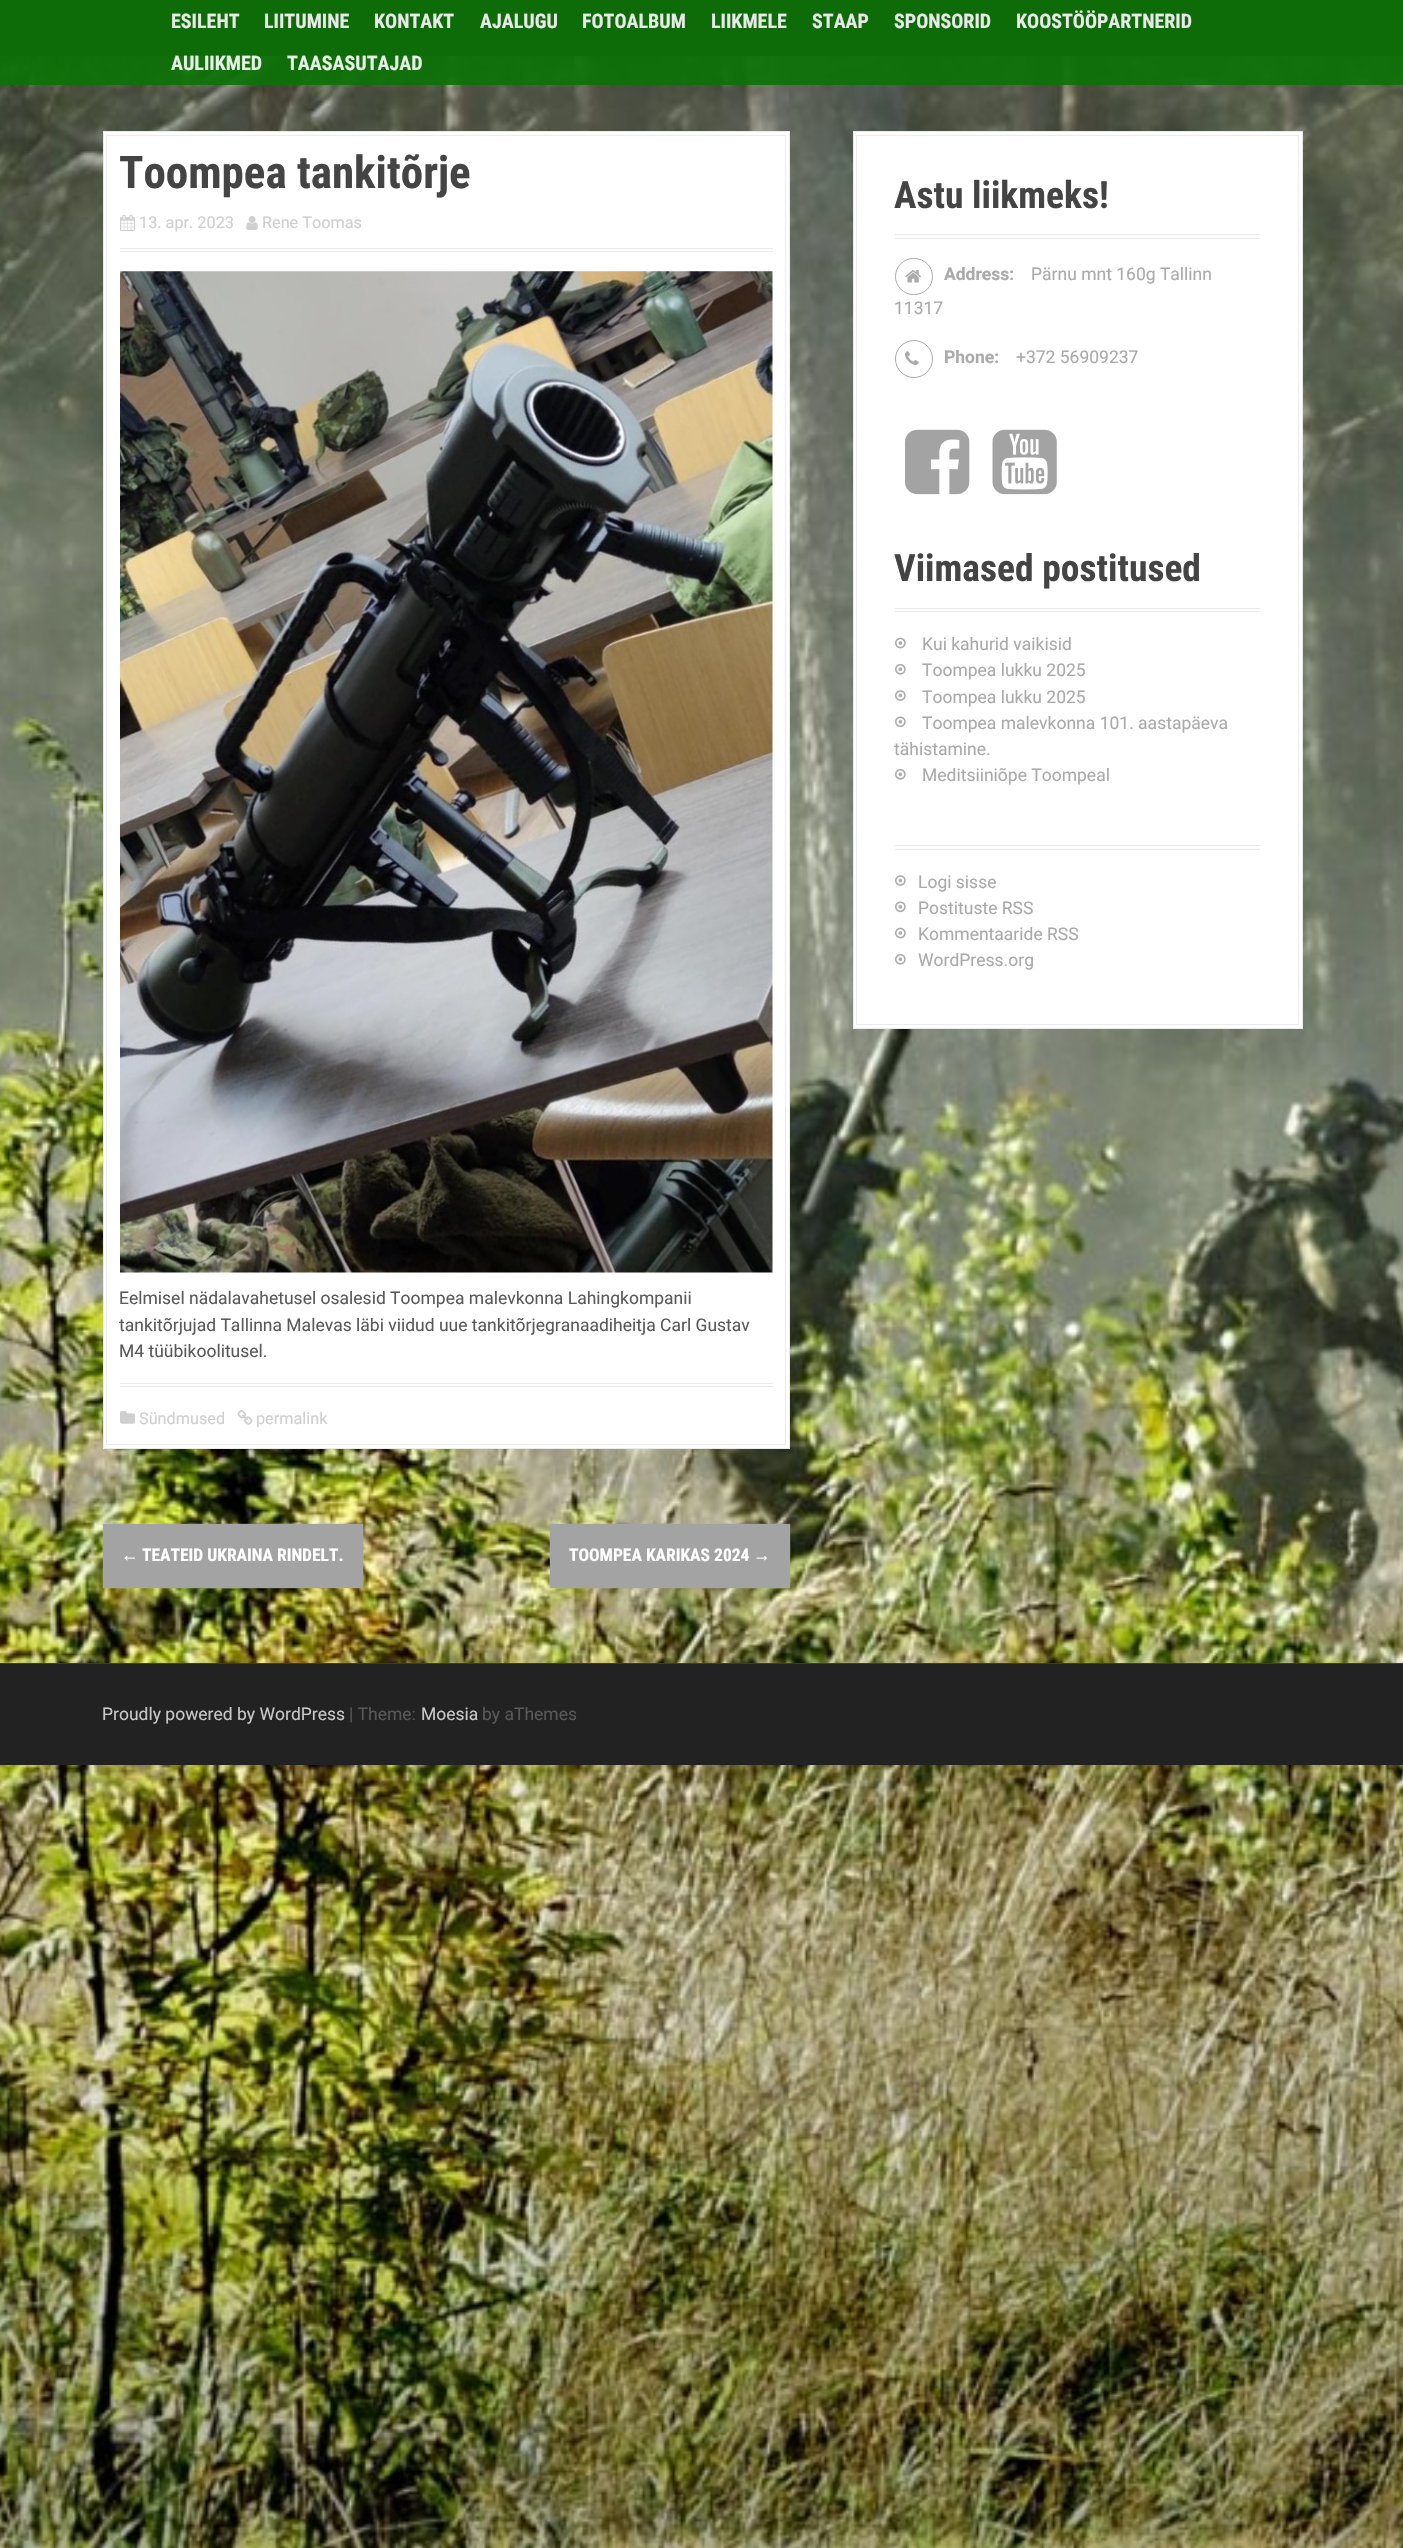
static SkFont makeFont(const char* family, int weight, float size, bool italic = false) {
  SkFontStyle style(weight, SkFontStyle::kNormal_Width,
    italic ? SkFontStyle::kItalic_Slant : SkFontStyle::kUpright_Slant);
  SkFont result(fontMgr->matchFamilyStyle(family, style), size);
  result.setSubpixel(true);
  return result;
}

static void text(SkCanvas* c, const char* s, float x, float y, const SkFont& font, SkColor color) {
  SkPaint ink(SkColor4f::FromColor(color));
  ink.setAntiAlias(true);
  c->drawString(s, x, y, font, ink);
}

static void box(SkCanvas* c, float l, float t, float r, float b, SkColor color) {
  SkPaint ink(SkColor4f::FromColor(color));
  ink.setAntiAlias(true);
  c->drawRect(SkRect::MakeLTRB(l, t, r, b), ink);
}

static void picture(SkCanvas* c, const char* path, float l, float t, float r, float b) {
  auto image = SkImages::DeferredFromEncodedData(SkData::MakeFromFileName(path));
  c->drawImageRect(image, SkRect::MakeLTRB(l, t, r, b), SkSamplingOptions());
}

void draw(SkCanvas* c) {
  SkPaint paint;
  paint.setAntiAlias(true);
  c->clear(0xffffffff);
  picture(c, "img_01.png", 0, 56, 1403, 2548);
  box(c, 0, 0, 1403, 56, 0xff222222);
  box(c, 0, 0, 1403, 85, 0xe60a7204);
  SkFont face1 = makeFont("Roboto Condensed", 700, 20);
  text(c, "ESILEHT", 171, 28, face1, 0xffe9e9e9);
  text(c, "LIITUMINE", 264, 28, face1, 0xffe9e9e9);
  text(c, "KONTAKT", 374, 28, face1, 0xffe9e9e9);
  text(c, "AJALUGU", 480, 28, face1, 0xffe9e9e9);
  text(c, "FOTOALBUM", 582, 28, face1, 0xffe9e9e9);
  text(c, "LIIKMELE", 711, 28, face1, 0xffe9e9e9);
  text(c, "STAAP", 812, 28, face1, 0xffe9e9e9);
  text(c, "SPONSORID", 894, 28, face1, 0xffe9e9e9);
  text(c, "KOOSTÖÖPARTNERID", 1016, 28, face1, 0xffe9e9e9);
  text(c, "AULIIKMED", 171, 70, face1, 0xffe7f1e7);
  text(c, "TAASASUTAJAD", 287, 70, face1, 0xffe7f1e7);
  paint.setColor(0xffffffff);
  c->drawRect(SkRect::MakeLTRB(103.5f, 131.5f, 789.5f, 1448.5f), paint);
  paint.setStyle(SkPaint::kStroke_Style);
  paint.setStrokeWidth(1);
  paint.setColor(0xffebebeb);
  c->drawRect(SkRect::MakeLTRB(103.5f, 131.5f, 789.5f, 1448.5f), paint);
  c->drawRect(SkRect::MakeLTRB(106.5f, 135.5f, 785.5f, 1444.5f), paint);
  box(c, 120, 248, 773, 249, 0xffebebeb);
  box(c, 120, 251, 773, 252, 0xffebebeb);
  SkFont face2 = makeFont("Roboto Condensed", 700, 45);
  text(c, "Toompea tankitõrje", 119, 188, face2, 0xff444444);
  picture(c, "img_02.png", 120, 214, 136, 231);
  SkFont face3 = makeFont("Roboto", 400, 16.25f);
  text(c, "13. apr. 2023", 139, 228, face3, 0xffcfcfcf);
  picture(c, "img_03.png", 246, 216, 258, 230);
  text(c, "Rene Toomas", 262, 228, face3, 0xffcfcfcf);
  picture(c, "img_04.png", 120, 271, 773, 1273);
  SkFont face4 = makeFont("Roboto", 400, 17.5f);
  text(c, "Eelmisel nädalavahetusel osalesid Toompea malevkonna Lahingkompanii", 119, 1304, face4, 0xff595959);
  text(c, "tankitõrjujad Tallinna Malevas läbi viidud uue tankitõrjegranaadiheitja Carl Gustav", 119, 1331, face4, 0xff595959);
  text(c, "M4 tüübikoolitusel.", 119, 1357, face4, 0xff595959);
  box(c, 120, 1383, 773, 1384, 0xffebebeb);
  box(c, 120, 1386, 773, 1387, 0xffebebeb);
  picture(c, "img_05.png", 120, 1411, 136, 1424);
  text(c, "Sündmused", 139, 1424, face3, 0xffcfcfcf);
  picture(c, "img_06.png", 237, 1410, 253, 1425);
  text(c, "permalink", 256, 1424, face3, 0xffcfcfcf);
  paint.setStyle(SkPaint::kFill_Style);
  paint.setColor(0xffadadad);
  paint.setMaskFilter(SkMaskFilter::MakeBlur(kNormal_SkBlurStyle, 0.5f));
  c->drawRect(SkRect::MakeLTRB(103, 1524, 363, 1588), paint);
  paint.setMaskFilter(nullptr);
  box(c, 103, 1524, 363, 1588, 0xffa3a3a3);
  SkFont face5 = makeFont("Liberation Sans", 700, 17.5f);
  text(c, "←", 121, 1561, face5, 0xffffffff);
  SkFont face6 = makeFont("Roboto Condensed", 700, 17.5f);
  text(c, "TEATEID UKRAINA RINDELT.", 142, 1561, face6, 0xffffffff);
  paint.setMaskFilter(SkMaskFilter::MakeBlur(kNormal_SkBlurStyle, 0.5f));
  c->drawRect(SkRect::MakeLTRB(550, 1524, 790, 1588), paint);
  paint.setMaskFilter(nullptr);
  box(c, 550, 1524, 790, 1588, 0xffa3a3a3);
  text(c, "TOOMPEA KARIKAS 2024", 569, 1561, face6, 0xffffffff);
  text(c, "→", 753, 1561, face5, 0xffffffff);
  paint.setColor(0xffffffff);
  c->drawRect(SkRect::MakeLTRB(853.5f, 131.5f, 1302.5f, 1028.5f), paint);
  paint.setStyle(SkPaint::kStroke_Style);
  paint.setColor(0xffebebeb);
  c->drawRect(SkRect::MakeLTRB(853.5f, 131.5f, 1302.5f, 1028.5f), paint);
  c->drawRect(SkRect::MakeLTRB(856.5f, 135.5f, 1298.5f, 1024.5f), paint);
  box(c, 895, 234, 1260, 235, 0xffebebeb);
  box(c, 895, 238, 1260, 239, 0xffebebeb);
  SkFont face7 = makeFont("Roboto Condensed", 700, 37.5f);
  text(c, "Astu liikmeks!", 894, 208, face7, 0xff444444);
  paint.setColor(0xffaaaaaa);
  c->drawRoundRect(SkRect::MakeLTRB(895.5f, 258.5f, 932.5f, 294.5f), 18, 18, paint);
  picture(c, "img_07.png", 905, 270, 921, 283);
  SkFont face8 = makeFont("Roboto", 700, 17.5f);
  text(c, "Address:", 944, 280, face8, 0xffaaaaaa);
  text(c, "Pärnu mnt 160g Tallinn", 1031, 280, face4, 0xffaaaaaa);
  text(c, "11317", 894, 314, face4, 0xffaaaaaa);
  c->drawCircle(914, 359, 18.5f, paint);
  picture(c, "img_08.png", 905, 351, 919, 365);
  text(c, "Phone:", 944, 363, face8, 0xffaaaaaa);
  text(c, "+372 56909237", 1016, 363, face4, 0xffaaaaaa);
  picture(c, "img_09.png", 905, 429, 970, 495);
  picture(c, "img_10.png", 992, 429, 1057, 495);
  box(c, 895, 608, 1260, 609, 0xffebebeb);
  box(c, 895, 611, 1260, 612, 0xffebebeb);
  text(c, "Viimased postitused", 894, 581, face7, 0xff444444);
  picture(c, "img_11.png", 895, 637, 906, 649);
  text(c, "Kui kahurid vaikisid", 922, 650, face4, 0xffaaaaaa);
  picture(c, "img_12.png", 895, 664, 906, 675);
  text(c, "Toompea lukku 2025", 922, 676, face4, 0xffaaaaaa);
  picture(c, "img_13.png", 895, 690, 906, 701);
  text(c, "Toompea lukku 2025", 922, 703, face4, 0xffaaaaaa);
  picture(c, "img_14.png", 895, 716, 906, 728);
  text(c, "Toompea malevkonna 101. aastapäeva", 922, 729, face4, 0xffaaaaaa);
  text(c, "tähistamine.", 894, 755, face4, 0xffaaaaaa);
  picture(c, "img_12.png", 895, 769, 906, 780);
  text(c, "Meditsiiniõpe Toompeal", 922, 781, face4, 0xffaaaaaa);
  box(c, 895, 845, 1260, 846, 0xffebebeb);
  box(c, 895, 849, 1260, 850, 0xffebebeb);
  picture(c, "img_13.png", 895, 875, 906, 886);
  text(c, "Logi sisse", 918, 888, face4, 0xffaaaaaa);
  picture(c, "img_14.png", 895, 901, 906, 913);
  text(c, "Postituste RSS", 918, 914, face4, 0xffaaaaaa);
  picture(c, "img_11.png", 895, 927, 906, 939);
  text(c, "Kommentaaride RSS", 918, 940, face4, 0xffaaaaaa);
  picture(c, "img_12.png", 895, 954, 906, 965);
  text(c, "WordPress.org", 918, 966, face4, 0xffaaaaaa);
  box(c, 0, 1664, 1403, 1765, 0xff222222);
  box(c, 0, 1663, 1403, 1664, 0xff3a3a3a);
  text(c, "Proudly powered by WordPress", 102, 1720, face4, 0xffc8c8c8);
  text(c, "| Theme:", 349, 1720, face4, 0xff595959);
  text(c, "Moesia", 421, 1720, face4, 0xffc8c8c8);
  text(c, "by aThemes", 482, 1720, face4, 0xff595959);
}
